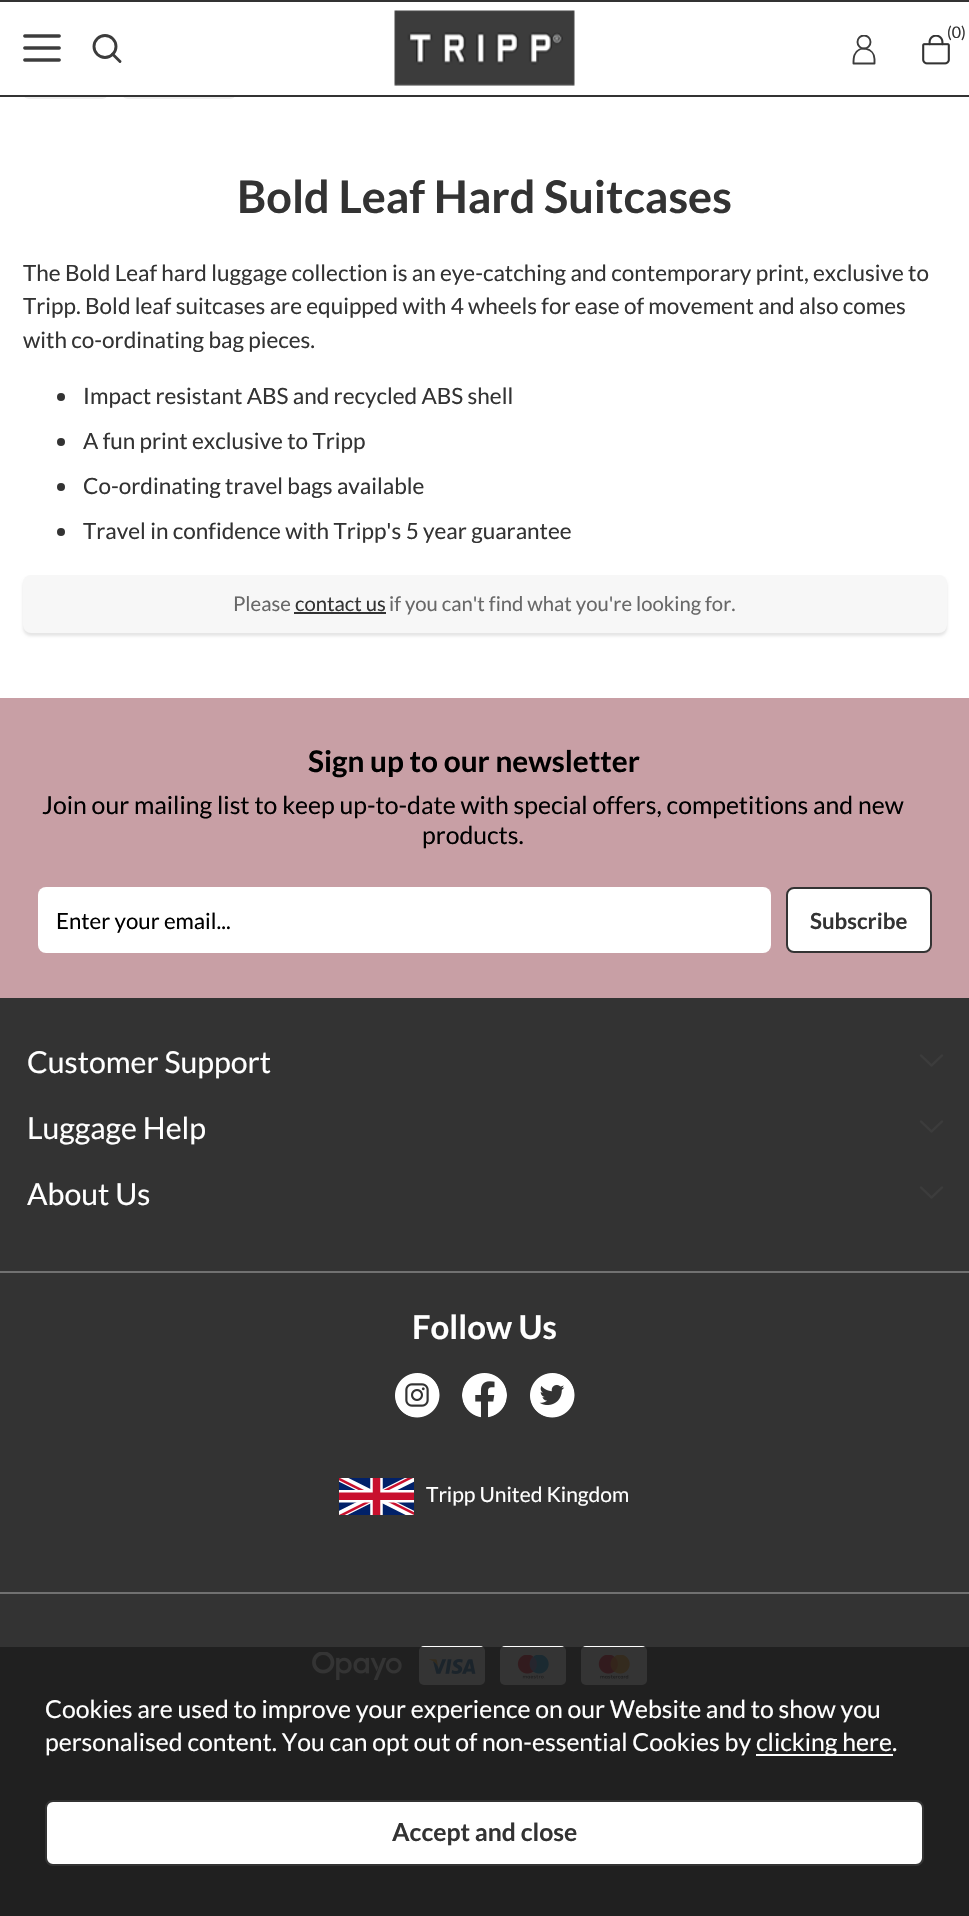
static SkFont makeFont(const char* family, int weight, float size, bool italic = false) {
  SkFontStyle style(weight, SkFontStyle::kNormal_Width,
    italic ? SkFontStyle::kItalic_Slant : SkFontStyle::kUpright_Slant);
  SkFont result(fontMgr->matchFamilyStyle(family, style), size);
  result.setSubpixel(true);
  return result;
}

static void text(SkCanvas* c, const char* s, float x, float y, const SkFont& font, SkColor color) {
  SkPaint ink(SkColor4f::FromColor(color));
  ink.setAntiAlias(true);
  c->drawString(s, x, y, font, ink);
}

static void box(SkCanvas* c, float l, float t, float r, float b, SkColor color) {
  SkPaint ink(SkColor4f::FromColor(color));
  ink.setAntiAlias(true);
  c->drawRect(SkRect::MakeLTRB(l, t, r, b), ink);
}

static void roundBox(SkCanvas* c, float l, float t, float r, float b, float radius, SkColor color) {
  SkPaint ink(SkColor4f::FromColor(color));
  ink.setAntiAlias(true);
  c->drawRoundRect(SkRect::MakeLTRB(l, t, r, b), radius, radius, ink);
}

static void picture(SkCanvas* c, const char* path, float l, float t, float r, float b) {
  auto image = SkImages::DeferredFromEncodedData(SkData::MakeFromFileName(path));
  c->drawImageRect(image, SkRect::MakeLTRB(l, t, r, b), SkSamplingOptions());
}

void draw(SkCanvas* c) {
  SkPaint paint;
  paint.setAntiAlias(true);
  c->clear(0xffffffff);
  roundBox(c, 23, 56, 108, 99, 6, 0xffeeeeee);
  roundBox(c, 122, 56, 236, 99, 6, 0xffeeeeee);
  box(c, 23, 56, 236, 95, 0xffffffff);
  box(c, 0, 0, 969, 2, 0xff333333);
  box(c, 0, 95, 969, 97, 0xff333333);
  picture(c, "img_01.png", 23, 34, 61, 62);
  paint.setStyle(SkPaint::kStroke_Style);
  paint.setStrokeWidth(2.9f);
  paint.setColor(0xff3c3c3c);
  c->drawCircle(105, 46.5f, 11, paint);
  paint.setStrokeCap(SkPaint::kRound_Cap);
  paint.setStrokeJoin(SkPaint::kRound_Join);
  c->drawPath(SkPathBuilder().moveTo(120, 61.5f).lineTo(112.5f, 54).detach(), paint);
  picture(c, "img_02.png", 394, 10, 575, 86);
  c->save();
  c->clipRect(SkRect::MakeLTRB(849, 35, 879, 65));
  paint.setStrokeWidth(1.9f);
  paint.setStrokeCap(SkPaint::kButt_Cap);
  paint.setStrokeJoin(SkPaint::kMiter_Join);
  c->drawCircle(864, 42, 6.5f, paint);
  c->restore();
  paint.setStrokeJoin(SkPaint::kRound_Join);
  c->drawPath(SkPathBuilder().moveTo(874.5f, 59).cubicTo(874.5f, 48, 859, 44.5f, 854.5f, 55).cubicTo(853.5f, 57.5f, 853.5f, 60.5f, 853.5f, 63.5f).lineTo(874.5f, 63.5f).close().detach(), paint);
  picture(c, "img_03.png", 922, 35, 950, 65);
  SkFont face1 = makeFont("Lato", 400, 16);
  text(c, "(0)", 947, 38, face1, 0xff333333);
  SkFont face2 = makeFont("Lato", 700, 45);
  text(c, "Bold Leaf Hard Suitcases", 237, 213, face2, 0xff333333);
  SkFont face3 = makeFont("Lato", 400, 22.5f);
  text(c, "The Bold Leaf hard luggage collection is an eye-catching and contemporary print, exclusive to", 23, 281, face3, 0xff333333);
  text(c, "Tripp. Bold leaf suitcases are equipped with 4 wheels for ease of movement and also comes", 23, 314, face3, 0xff333333);
  text(c, "with co-ordinating bag pieces.", 23, 348, face3, 0xff333333);
  paint.setStyle(SkPaint::kFill_Style);
  paint.setColor(0xff333333);
  c->drawCircle(61, 397, 4, paint);
  text(c, "Impact resistant ABS and recycled ABS shell", 83, 404, face3, 0xff333333);
  c->drawCircle(61, 442, 4, paint);
  text(c, "A fun print exclusive to Tripp", 83, 449, face3, 0xff333333);
  c->drawCircle(61, 487, 4, paint);
  text(c, "Co-ordinating travel bags available", 83, 494, face3, 0xff333333);
  c->drawCircle(61, 532, 4, paint);
  text(c, "Travel in confidence with Tripp's 5 year guarantee", 83, 539, face3, 0xff333333);
  paint.setColor(0x1a000000);
  paint.setMaskFilter(SkMaskFilter::MakeBlur(kNormal_SkBlurStyle, 1.5f));
  c->drawRoundRect(SkRect::MakeLTRB(23, 578, 947, 636), 8, 8, paint);
  paint.setMaskFilter(nullptr);
  roundBox(c, 23, 575, 947, 633, 8, 0xfff7f7f7);
  SkFont face4 = makeFont("Lato", 400, 20.25f);
  text(c, "Please", 233, 611, face4, 0xff686868);
  text(c, "contact us", 295, 611, face4, 0xff333333);
  box(c, 294, 612, 386, 614, 0xff333333);
  text(c, "if you can't find what you're looking for.", 389, 611, face4, 0xff686868);
  box(c, 0, 998, 969, 1916, 0xff333333);
  box(c, 0, 698, 969, 998, 0xffc89fa5);
  SkFont face5 = makeFont("Lato", 700, 29.75f);
  text(c, "Sign up to our newsletter", 308, 772, face5, 0xff000000);
  SkFont face6 = makeFont("Lato", 400, 24.75f);
  text(c, "Join our mailing list to keep up-to-date with special offers, competitions and new", 42, 814, face6, 0xff000000);
  text(c, "products.", 422, 844, face6, 0xff000000);
  roundBox(c, 38, 887, 771, 953, 8, 0xffffffff);
  SkFont face7 = makeFont("Lato", 400, 22.25f);
  text(c, "Enter your email...", 56, 929, face7, 0xff000000);
  paint.setColor(0xffffffff);
  c->drawRoundRect(SkRect::MakeLTRB(787, 888, 931, 952), 7, 7, paint);
  paint.setStyle(SkPaint::kStroke_Style);
  paint.setStrokeWidth(2);
  paint.setStrokeJoin(SkPaint::kMiter_Join);
  paint.setColor(0xff333333);
  c->drawRoundRect(SkRect::MakeLTRB(787, 888, 931, 952), 7, 7, paint);
  SkFont face8 = makeFont("Lato", 700, 22.25f);
  text(c, "Subscribe", 810, 929, face8, 0xff333333);
  paint.setStrokeWidth(2.4f);
  paint.setStrokeCap(SkPaint::kRound_Cap);
  paint.setStrokeJoin(SkPaint::kRound_Join);
  paint.setColor(0xff3c3c3c);
  c->drawPath(SkPathBuilder().moveTo(942, 1055.5f).lineTo(931.5f, 1065.5f).lineTo(921, 1055.5f).detach(), paint);
  SkFont face9 = makeFont("Lato", 400, 30.25f);
  text(c, "Customer Support", 27, 1073, face9, 0xffffffff);
  c->drawPath(SkPathBuilder().moveTo(942, 1121.5f).lineTo(931.5f, 1131.5f).lineTo(921, 1121.5f).detach(), paint);
  text(c, "Luggage Help", 27, 1139, face9, 0xffffffff);
  c->drawPath(SkPathBuilder().moveTo(942, 1187.5f).lineTo(931.5f, 1197.5f).lineTo(921, 1187.5f).detach(), paint);
  text(c, "About Us", 27, 1205, face9, 0xffffffff);
  box(c, 0, 1271, 969, 1273, 0xff717171);
  SkFont face10 = makeFont("Lato", 700, 33);
  text(c, "Follow Us", 412, 1339, face10, 0xffffffff);
  picture(c, "img_04.png", 395, 1373, 440, 1418);
  picture(c, "img_05.png", 462, 1373, 507, 1418);
  picture(c, "img_06.png", 530, 1373, 575, 1418);
  picture(c, "img_07.png", 339, 1478, 414, 1515);
  SkFont face11 = makeFont("Lato", 400, 21);
  text(c, "Tripp United Kingdom", 426, 1502, face11, 0xffffffff);
  box(c, 0, 1592, 969, 1594, 0xff717171);
  picture(c, "img_08.png", 312, 1652, 402, 1680);
  roundBox(c, 419, 1646, 485, 1685, 5, 0xffffffff);
  picture(c, "img_09.png", 429, 1659, 476, 1674);
  roundBox(c, 500, 1646, 566, 1685, 5, 0xffffffff);
  picture(c, "img_10.png", 517, 1655, 549, 1679);
  roundBox(c, 581, 1646, 647, 1685, 5, 0xffffffff);
  picture(c, "img_11.png", 598, 1655, 630, 1679);
  box(c, 0, 1647, 969, 1916, 0xe61e1e1e);
  text(c, "Cookies are used to improve your experience on our Website and to show you", 45, 1718, face6, 0xffffffff);
  text(c, "personalised content. You can opt out of non-essential Cookies by", 45, 1751, face6, 0xffffffff);
  box(c, 756, 1754, 893, 1756, 0xffffffff);
  text(c, "clicking here.", 756, 1751, face6, 0xffffffff);
  paint.setStyle(SkPaint::kFill_Style);
  paint.setColor(0xffffffff);
  c->drawRoundRect(SkRect::MakeLTRB(46, 1801, 923, 1865), 7, 7, paint);
  paint.setStyle(SkPaint::kStroke_Style);
  paint.setStrokeWidth(2);
  paint.setStrokeCap(SkPaint::kButt_Cap);
  paint.setStrokeJoin(SkPaint::kMiter_Join);
  paint.setColor(0xff333333);
  c->drawRoundRect(SkRect::MakeLTRB(46, 1801, 923, 1865), 7, 7, paint);
  SkFont face12 = makeFont("Lato", 700, 24.75f);
  text(c, "Accept and close", 392, 1841, face12, 0xff333333);
}
